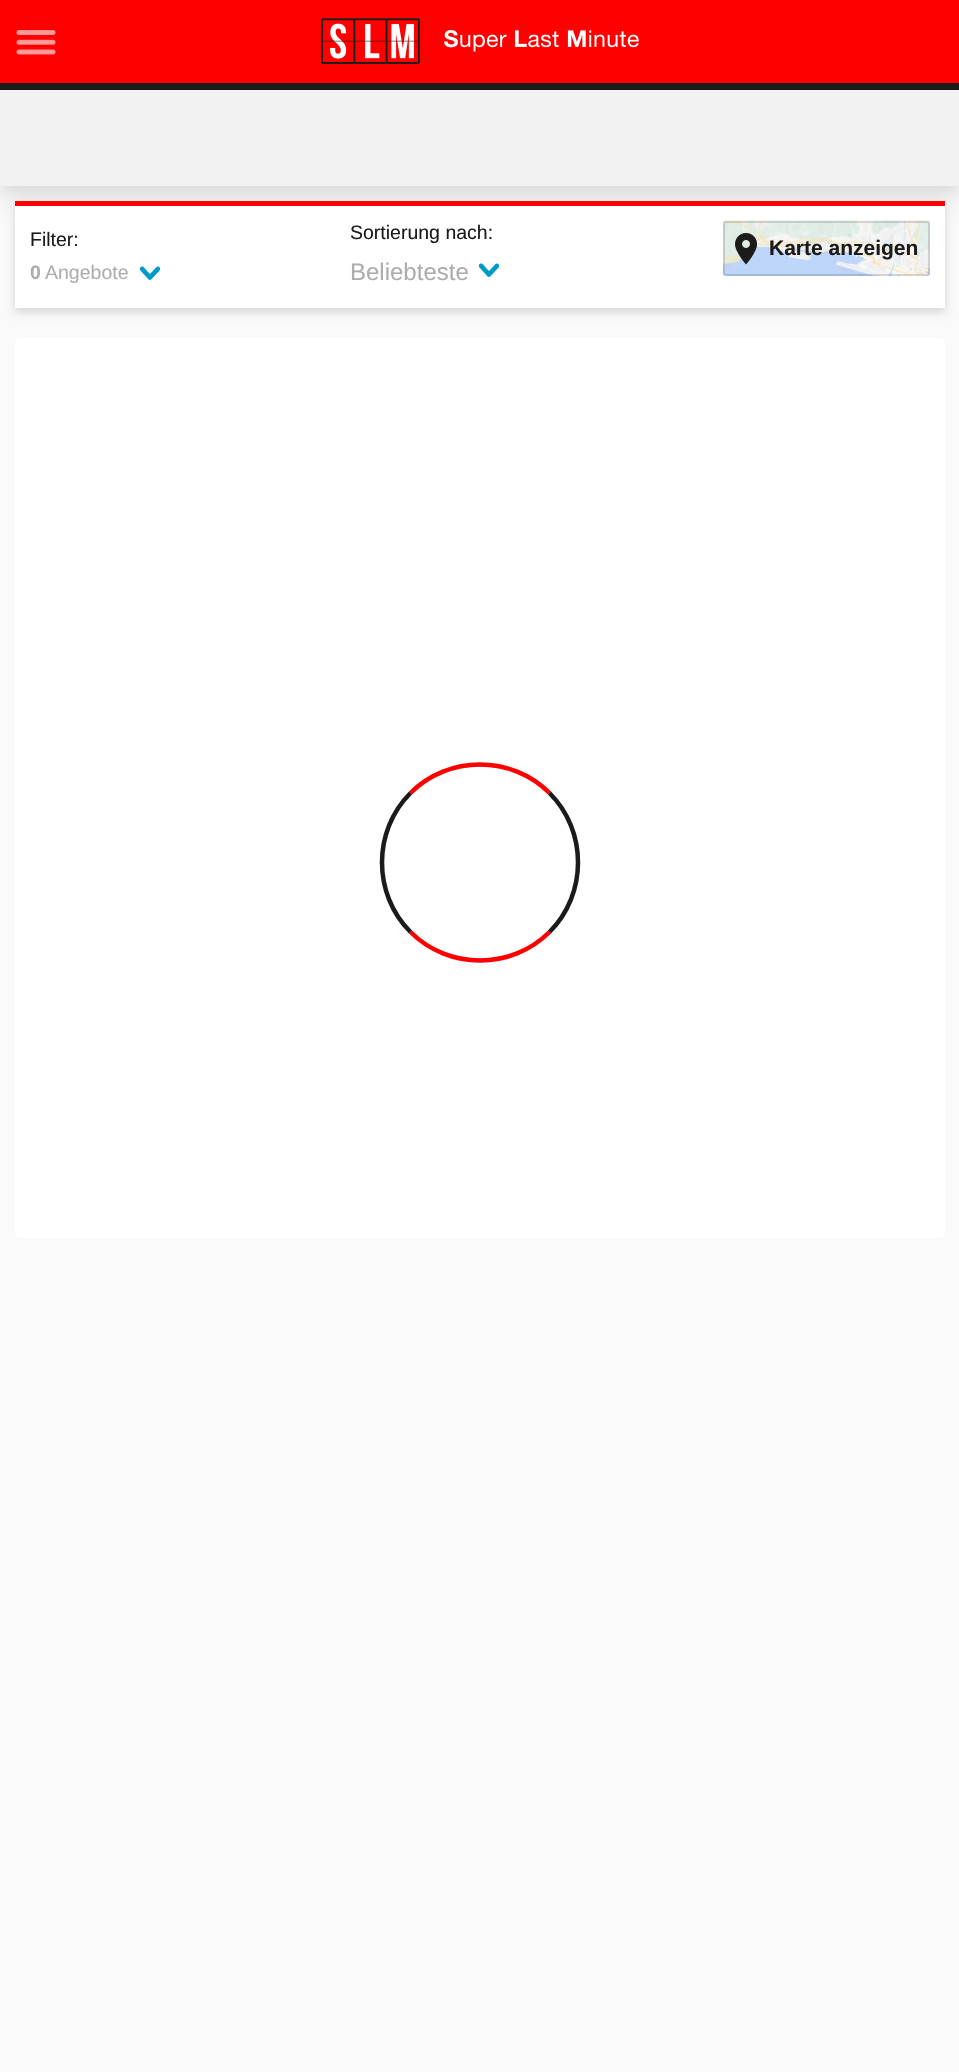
static SkFont makeFont(const char* family, int weight, float size, bool italic = false) {
  SkFontStyle style(weight, SkFontStyle::kNormal_Width,
    italic ? SkFontStyle::kItalic_Slant : SkFontStyle::kUpright_Slant);
  SkFont result(fontMgr->matchFamilyStyle(family, style), size);
  result.setSubpixel(true);
  return result;
}

static void text(SkCanvas* c, const char* s, float x, float y, const SkFont& font, SkColor color) {
  SkPaint ink(SkColor4f::FromColor(color));
  ink.setAntiAlias(true);
  c->drawString(s, x, y, font, ink);
}

static void box(SkCanvas* c, float l, float t, float r, float b, SkColor color) {
  SkPaint ink(SkColor4f::FromColor(color));
  ink.setAntiAlias(true);
  c->drawRect(SkRect::MakeLTRB(l, t, r, b), ink);
}

static void roundBox(SkCanvas* c, float l, float t, float r, float b, float radius, SkColor color) {
  SkPaint ink(SkColor4f::FromColor(color));
  ink.setAntiAlias(true);
  c->drawRoundRect(SkRect::MakeLTRB(l, t, r, b), radius, radius, ink);
}

static void picture(SkCanvas* c, const char* path, float l, float t, float r, float b) {
  auto image = SkImages::DeferredFromEncodedData(SkData::MakeFromFileName(path));
  c->drawImageRect(image, SkRect::MakeLTRB(l, t, r, b), SkSamplingOptions());
}

void draw(SkCanvas* c) {
  SkPaint paint;
  paint.setAntiAlias(true);
  c->clear(0xfffafafa);
  paint.setColor(0x26000000);
  paint.setMaskFilter(SkMaskFilter::MakeBlur(kNormal_SkBlurStyle, 11));
  c->drawRect(SkRect::MakeLTRB(0, 98, 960, 194), paint);
  paint.setMaskFilter(nullptr);
  box(c, 0, 0, 959, 83, 0xffff0000);
  box(c, 0, 83, 959, 90, 0xff1b1b1b);
  picture(c, "img_01.png", 16, 30, 56, 55);
  picture(c, "img_02.png", 321, 18, 420, 64);
  picture(c, "img_03.png", 444, 30, 639, 52);
  box(c, 0, 90, 959, 186, 0xfff2f2f2);
  paint.setMaskFilter(SkMaskFilter::MakeBlur(kNormal_SkBlurStyle, 4.5f));
  c->drawRect(SkRect::MakeLTRB(15, 206, 945, 312), paint);
  paint.setMaskFilter(nullptr);
  box(c, 15, 206, 945, 308, 0xffffffff);
  box(c, 15, 201, 945, 206, 0xffff0000);
  SkFont face1 = makeFont("Liberation Sans", 400, 19.5f);
  text(c, "Filter:", 30, 246, face1, 0xff1b1b1b);
  SkFont face2 = makeFont("Liberation Sans", 700, 19.5f);
  text(c, "0", 30, 279, face2, 0xffb0acac);
  text(c, "Angebote", 45, 279, face1, 0xffb0acac);
  picture(c, "img_04.png", 139, 266, 161, 280);
  text(c, "Sortierung nach:", 350, 239, face1, 0xff1b1b1b);
  SkFont face3 = makeFont("Liberation Sans", 400, 24);
  text(c, "Beliebteste", 350, 280, face3, 0xffb0acac);
  picture(c, "img_04.png", 478, 263, 500, 277);
  picture(c, "img_05.png", 723, 220, 930, 276);
  paint.setStyle(SkPaint::kStroke_Style);
  paint.setStrokeWidth(2);
  paint.setColor(0x261b1b1b);
  c->drawRoundRect(SkRect::MakeLTRB(724, 222, 929, 275), 2, 2, paint);
  picture(c, "img_06.png", 735, 233, 757, 265);
  SkFont face4 = makeFont("Liberation Sans", 700, 21);
  text(c, "Karte anzeigen", 769, 255, face4, 0xff1b1b1b);
  roundBox(c, 15, 338, 945, 1238, 5, 0xffffffff);
  paint.setStrokeWidth(4.5f);
  paint.setColor(0xffff0000);
  c->drawPath(SkPathBuilder().moveTo(410.5f, 793).cubicTo(448.5f, 755, 511.5f, 755, 549.5f, 793).detach(), paint);
  paint.setColor(0xff1b1b1b);
  c->drawPath(SkPathBuilder().moveTo(549.5f, 793).cubicTo(587.5f, 831, 587.5f, 894, 549.5f, 932).detach(), paint);
  paint.setColor(0xffff0000);
  c->drawPath(SkPathBuilder().moveTo(549.5f, 932).cubicTo(511.5f, 970, 448.5f, 970, 410.5f, 932).detach(), paint);
  paint.setColor(0xff1b1b1b);
  c->drawPath(SkPathBuilder().moveTo(410.5f, 932).cubicTo(372.5f, 894, 372.5f, 831, 410.5f, 793).detach(), paint);
}
